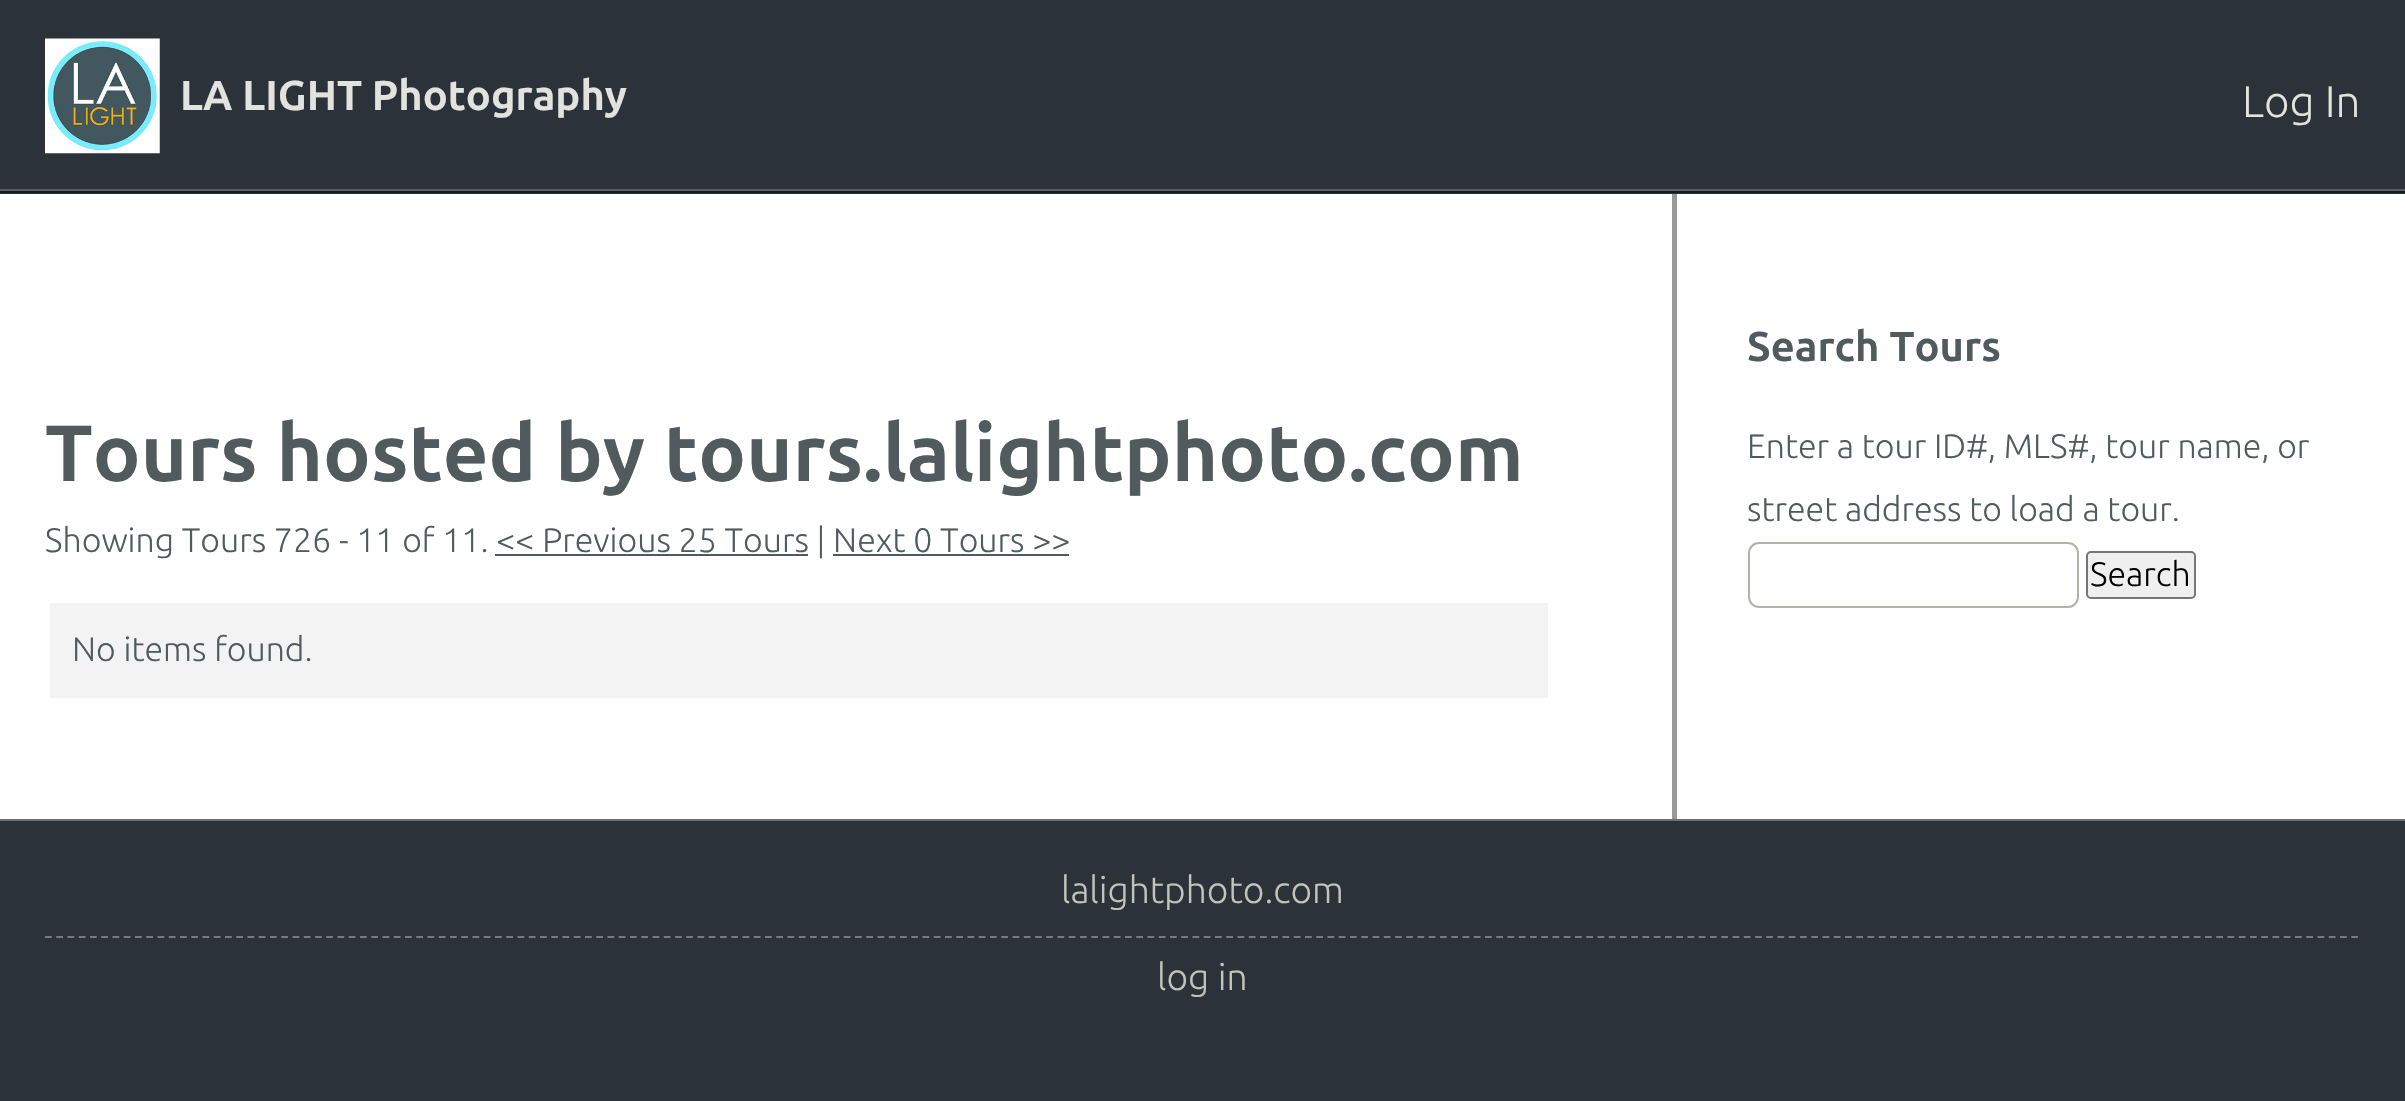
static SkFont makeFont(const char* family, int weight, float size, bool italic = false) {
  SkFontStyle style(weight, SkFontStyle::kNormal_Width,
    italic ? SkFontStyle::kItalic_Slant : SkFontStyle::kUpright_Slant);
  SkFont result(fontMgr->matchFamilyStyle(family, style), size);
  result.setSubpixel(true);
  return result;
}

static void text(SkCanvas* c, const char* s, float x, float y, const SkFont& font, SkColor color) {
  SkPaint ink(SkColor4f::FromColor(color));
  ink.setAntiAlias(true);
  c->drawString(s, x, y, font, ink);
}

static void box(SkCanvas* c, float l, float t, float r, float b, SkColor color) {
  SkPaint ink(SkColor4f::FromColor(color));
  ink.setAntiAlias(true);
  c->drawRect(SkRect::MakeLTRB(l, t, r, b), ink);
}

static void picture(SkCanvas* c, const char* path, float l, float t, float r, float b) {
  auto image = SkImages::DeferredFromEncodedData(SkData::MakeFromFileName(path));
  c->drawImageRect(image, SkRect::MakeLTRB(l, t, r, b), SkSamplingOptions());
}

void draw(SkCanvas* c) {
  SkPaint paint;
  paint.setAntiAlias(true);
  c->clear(0xff2b323a);
  box(c, 0, 191, 2405, 193, 0xff16191d);
  picture(c, "img_01.png", 45, 38, 160, 154);
  SkFont face1 = makeFont("Ubuntu", 700, 41.75f);
  text(c, "LA LIGHT Photography", 180, 110, face1, 0xffe2e3df);
  SkFont face2 = makeFont("Ubuntu", 300, 44);
  text(c, "Log In", 2242, 117, face2, 0xffe2e3df);
  box(c, 0, 189, 2405, 191, 0xff595e63);
  box(c, 0, 194, 2405, 819, 0xffffffff);
  SkFont face3 = makeFont("Ubuntu", 700, 79.6f);
  text(c, "Tours hosted by tours.lalightphoto.com", 45, 481, face3, 0xff515b5e);
  SkFont face4 = makeFont("Ubuntu", 300, 33.9f);
  text(c, "Showing Tours 726 - 11 of 11. << Previous 25 Tours | Next 0 Tours >>", 45, 552, face4, 0xff515b5e);
  box(c, 495, 554, 808, 556, 0xff515b5e);
  box(c, 833, 554, 1069, 556, 0xff515b5e);
  box(c, 50, 603, 1548, 698, 0xfff3f3f3);
  text(c, "No items found.", 72, 661, face4, 0xff515b5e);
  box(c, 1672, 194, 1677, 819, 0xff999999);
  text(c, "Search Tours", 1747, 361, face1, 0xff515b5e);
  text(c, "Enter a tour ID#, MLS#, tour name, or", 1747, 458, face4, 0xff515b5e);
  text(c, "street address to load a tour.", 1747, 521, face4, 0xff515b5e);
  paint.setStyle(SkPaint::kStroke_Style);
  paint.setStrokeWidth(2);
  paint.setColor(0xffb1b3a9);
  c->drawRoundRect(SkRect::MakeLTRB(1749, 543, 2078, 607), 10, 10, paint);
  paint.setStyle(SkPaint::kFill_Style);
  paint.setColor(0xffefefef);
  c->drawRoundRect(SkRect::MakeLTRB(2087, 552, 2195, 598), 4, 4, paint);
  paint.setStyle(SkPaint::kStroke_Style);
  paint.setColor(0xff767676);
  c->drawRoundRect(SkRect::MakeLTRB(2087, 552, 2195, 598), 4, 4, paint);
  text(c, "Search", 2090, 586, face4, 0xff000000);
  box(c, 0, 819, 2405, 821, 0xff6b7075);
  SkFont face5 = makeFont("Ubuntu", 300, 37.25f);
  text(c, "lalightphoto.com", 1061, 903, face5, 0xffc2c4bc);
  paint.setStrokeWidth(2.2f);
  paint.setColor(0xff777b7b);
  paint.setPathEffect(SkDashPathEffect::Make({{6.75f, 4.5f}}, 0));
  c->drawPath(SkPathBuilder().moveTo(45, 937).lineTo(2360, 937).detach(), paint);
  paint.setPathEffect(nullptr);
  text(c, "log in", 1157, 990, face5, 0xffc2c4bc);
}
